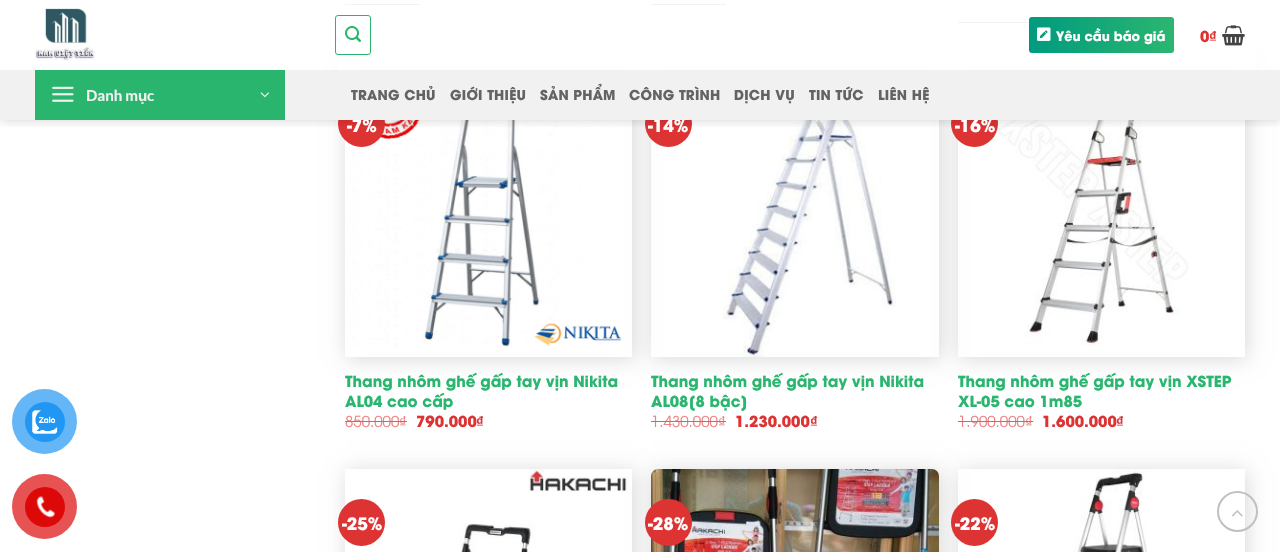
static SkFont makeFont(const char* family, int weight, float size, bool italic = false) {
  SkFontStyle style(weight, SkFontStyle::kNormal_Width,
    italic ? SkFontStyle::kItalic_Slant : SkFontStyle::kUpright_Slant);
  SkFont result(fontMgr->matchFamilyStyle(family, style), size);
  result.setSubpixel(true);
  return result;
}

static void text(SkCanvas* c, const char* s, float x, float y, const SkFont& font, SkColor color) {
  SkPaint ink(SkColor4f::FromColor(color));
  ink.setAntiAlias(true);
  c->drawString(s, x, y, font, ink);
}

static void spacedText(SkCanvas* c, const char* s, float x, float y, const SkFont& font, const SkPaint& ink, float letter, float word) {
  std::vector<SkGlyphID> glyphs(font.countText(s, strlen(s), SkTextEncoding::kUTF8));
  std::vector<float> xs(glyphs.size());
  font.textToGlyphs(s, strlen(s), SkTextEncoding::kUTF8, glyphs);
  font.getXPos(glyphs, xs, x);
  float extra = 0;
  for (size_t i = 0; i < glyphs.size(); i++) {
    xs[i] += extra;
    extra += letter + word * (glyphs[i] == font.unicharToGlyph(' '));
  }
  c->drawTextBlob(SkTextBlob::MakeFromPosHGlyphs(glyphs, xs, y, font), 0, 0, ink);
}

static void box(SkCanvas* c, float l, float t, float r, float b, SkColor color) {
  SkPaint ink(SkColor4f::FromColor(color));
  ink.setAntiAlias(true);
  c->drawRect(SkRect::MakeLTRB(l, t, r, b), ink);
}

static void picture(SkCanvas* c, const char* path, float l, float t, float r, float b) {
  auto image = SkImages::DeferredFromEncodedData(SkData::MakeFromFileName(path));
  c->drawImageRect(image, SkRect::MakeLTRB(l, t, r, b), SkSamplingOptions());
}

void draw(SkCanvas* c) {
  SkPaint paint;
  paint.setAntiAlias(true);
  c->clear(0xffffffff);
  paint.setColor(0xff64b6f7);
  c->drawCircle(44.5f, 421.5f, 32.5f, paint);
  paint.setColor(0xff2196f3);
  c->drawCircle(45, 422, 20, paint);
  picture(c, "img_01.png", 32, 410, 58, 434);
  paint.setColor(0xffe75252);
  c->drawCircle(44.5f, 506.5f, 32.5f, paint);
  paint.setColor(0xffdd0808);
  c->drawCircle(45, 507, 20, paint);
  picture(c, "img_02.png", 36, 496, 55, 518);
  box(c, 345, 4, 420, 5, 0xff858585);
  box(c, 651, 4, 726, 5, 0xff858585);
  box(c, 958, 22, 1033, 23, 0xff858585);
  c->save();
  c->clipPath(SkPathBuilder(SkPathFillType::kEvenOdd).moveTo(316, 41).lineTo(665, 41).lineTo(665, 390).lineTo(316, 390).close().moveTo(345, 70).lineTo(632, 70).lineTo(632, 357).lineTo(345, 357).close().detach(), true);
  paint.setColor(0x26000000);
  paint.setMaskFilter(SkMaskFilter::MakeBlur(kNormal_SkBlurStyle, 10));
  c->drawRect(SkRect::MakeLTRB(347, 72, 634, 359), paint);
  paint.setMaskFilter(nullptr);
  c->restore();
  picture(c, "img_09.png", 348, 120, 622, 347);
  paint.setColor(0xffdd3333);
  c->drawCircle(361.5f, 123.5f, 23.5f, paint);
  c->save();
  c->clipPath(SkPathBuilder(SkPathFillType::kEvenOdd).moveTo(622, 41).lineTo(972, 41).lineTo(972, 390).lineTo(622, 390).close().moveTo(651, 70).lineTo(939, 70).lineTo(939, 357).lineTo(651, 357).close().detach(), true);
  paint.setColor(0x26000000);
  paint.setMaskFilter(SkMaskFilter::MakeBlur(kNormal_SkBlurStyle, 10));
  c->drawRect(SkRect::MakeLTRB(653, 72, 941, 359), paint);
  paint.setMaskFilter(nullptr);
  c->restore();
  paint.setColor(0xffdd3333);
  c->drawCircle(668.5f, 123.5f, 23.5f, paint);
  picture(c, "img_10.png", 723, 120, 896, 357);
  c->save();
  c->clipPath(SkPathBuilder(SkPathFillType::kEvenOdd).moveTo(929, 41).lineTo(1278, 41).lineTo(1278, 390).lineTo(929, 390).close().moveTo(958, 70).lineTo(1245, 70).lineTo(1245, 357).lineTo(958, 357).close().detach(), true);
  paint.setColor(0x26000000);
  paint.setMaskFilter(SkMaskFilter::MakeBlur(kNormal_SkBlurStyle, 10));
  c->drawRect(SkRect::MakeLTRB(960, 72, 1247, 359), paint);
  paint.setMaskFilter(nullptr);
  c->restore();
  picture(c, "img_11.png", 997, 120, 1240, 346);
  paint.setColor(0xffdd3333);
  c->drawCircle(974.5f, 123.5f, 23.5f, paint);
  c->save();
  c->clipRect(SkRect::MakeLTRB(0, 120, 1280, 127));
  paint.setColor(0x26000000);
  paint.setMaskFilter(SkMaskFilter::MakeBlur(kNormal_SkBlurStyle, 5));
  c->drawRect(SkRect::MakeLTRB(1, 1, 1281, 121), paint);
  paint.setMaskFilter(nullptr);
  c->restore();
  box(c, 338, 4, 1256, 70, 0xe6ffffff);
  picture(c, "img_03.png", 35, 7, 96, 61);
  paint.setStyle(SkPaint::kStroke_Style);
  paint.setStrokeWidth(1);
  paint.setColor(0xff2ab56f);
  c->drawRoundRect(SkRect::MakeLTRB(335.5f, 15.5f, 370.5f, 54.5f), 2.5f, 2.5f, paint);
  picture(c, "img_04.png", 345, 26, 361, 42);
  paint.setStyle(SkPaint::kFill_Style);
  {
    const SkColor colors[] = {0xff2bb670, 0xff009b7f};
    const float stops[] = {0, 1};
    const SkPoint ends[] = {{1174, 35}, {1029, 35}};
    paint.setShader(SkGradientShader::MakeLinear(ends, colors, stops, 2, SkTileMode::kClamp));
    paint.setAlpha(255);
  }
  c->drawRoundRect(SkRect::MakeLTRB(1029, 17, 1174, 53), 3, 3, paint);
  picture(c, "img_05.png", 1037, 27, 1051, 41);
  SkFont face1 = makeFont("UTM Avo", 700, 12.75f);
  text(c, "Yêu cầu báo giá", 1056, 41, face1, 0xffffffff);
  SkFont face2 = makeFont("UTM Avo", 700, 15.1f);
  text(c, "0", 1200, 42, face2, 0xffdd3333);
  SkFont face3 = makeFont("Liberation Sans", 700, 15.1f);
  text(c, "₫", 1209, 42, face3, 0xffdd3333);
  picture(c, "img_06.png", 1222, 25, 1245, 46);
  SkFont face4 = makeFont("UTM Avo", 700, 17);
  text(c, "-7%", 347, 132, face4, 0xffffffff);
  text(c, "-14%", 648, 132, face4, 0xffffffff);
  text(c, "-16%", 955, 132, face4, 0xffffffff);
  box(c, 0, 70, 1280, 120, 0xfff1f1f1);
  box(c, 35, 70, 285, 120, 0xff2ab56f);
  picture(c, "img_07.png", 52, 86, 74, 102);
  SkFont face5 = makeFont("Lato", 700, 15.1f);
  text(c, "Danh m", 86, 101, face5, 0xfff1f1f1);
  text(c, "ụ", 138, 101, face3, 0xfff1f1f1);
  text(c, "c", 147, 101, face5, 0xfff1f1f1);
  picture(c, "img_08.png", 260, 92, 269, 98);
  SkFont face6 = makeFont("UTM Avo", 700, 13.5f);
  paint.setShader(nullptr);
  paint.setColor(0xff636363);
  spacedText(c, "TRANG CHỦ", 351, 100, face6, paint, 0.25f, 0);
  spacedText(c, "GIỚI THIỆU", 450, 100, face6, paint, 0.25f, 0);
  spacedText(c, "SẢN PHẨM", 540, 100, face6, paint, 0.25f, 0);
  spacedText(c, "CÔNG TRÌNH", 629, 100, face6, paint, 0.25f, 0);
  spacedText(c, "DỊCH VỤ", 734, 100, face6, paint, 0.25f, 0);
  spacedText(c, "TIN TỨC", 809, 100, face6, paint, 0.25f, 0);
  spacedText(c, "LIÊN HỆ", 878, 100, face6, paint, 0.25f, 0);
  text(c, "Thang nhôm ghế gấp tay vịn Nikita", 345, 387, face2, 0xff2bb670);
  text(c, "AL04 cao cấp", 345, 407, face2, 0xff2bb670);
  SkFont face7 = makeFont("UTM Avo", 400, 15.1f);
  text(c, "850.000", 345, 427, face7, 0xffeb8585);
  box(c, 345, 421, 399, 422, 0xff858585);
  SkFont face8 = makeFont("Liberation Sans", 400, 15.1f);
  text(c, "₫", 399, 427, face8, 0xffeb8585);
  box(c, 399, 421, 407, 422, 0xff858585);
  text(c, "790.000", 416, 427, face2, 0xffdd3333);
  text(c, "₫", 476, 427, face3, 0xffdd3333);
  text(c, "Thang nhôm ghế gấp tay vịn Nikita", 651, 387, face2, 0xff2bb670);
  text(c, "AL08[8 bậc]", 651, 407, face2, 0xff2bb670);
  text(c, "1.430.000", 651, 427, face7, 0xffeb8585);
  box(c, 651, 421, 718, 422, 0xff858585);
  text(c, "₫", 718, 427, face8, 0xffeb8585);
  box(c, 718, 421, 726, 422, 0xff858585);
  text(c, "1.230.000", 735, 427, face2, 0xffdd3333);
  text(c, "₫", 810, 427, face3, 0xffdd3333);
  text(c, "Thang nhôm ghế gấp tay vịn XSTEP", 958, 387, face2, 0xff2bb670);
  text(c, "XL-05 cao 1m85", 958, 407, face2, 0xff2bb670);
  text(c, "1.900.000", 958, 427, face7, 0xffeb8585);
  box(c, 958, 421, 1025, 422, 0xff858585);
  text(c, "₫", 1025, 427, face8, 0xffeb8585);
  box(c, 1025, 421, 1033, 422, 0xff858585);
  text(c, "1.600.000", 1042, 427, face2, 0xffdd3333);
  text(c, "₫", 1116, 427, face3, 0xffdd3333);
  c->save();
  c->clipPath(SkPathBuilder(SkPathFillType::kEvenOdd).moveTo(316, 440).lineTo(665, 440).lineTo(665, 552).lineTo(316, 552).close().moveTo(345, 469).lineTo(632, 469).lineTo(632, 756).lineTo(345, 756).close().detach(), true);
  paint.setColor(0x26000000);
  paint.setMaskFilter(SkMaskFilter::MakeBlur(kNormal_SkBlurStyle, 10));
  c->drawRect(SkRect::MakeLTRB(347, 471, 634, 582), paint);
  paint.setMaskFilter(nullptr);
  c->restore();
  picture(c, "img_12.png", 460, 469, 628, 552);
  paint.setColor(0xffdd3333);
  c->drawCircle(361.5f, 522.5f, 23.5f, paint);
  text(c, "-25%", 342, 530, face4, 0xffffffff);
  paint.setColor(0x26000000);
  paint.setMaskFilter(SkMaskFilter::MakeBlur(kNormal_SkBlurStyle, 10));
  c->drawRect(SkRect::MakeLTRB(653, 471, 941, 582), paint);
  paint.setMaskFilter(nullptr);
  picture(c, "img_13.png", 651, 469, 939, 552);
  paint.setColor(0xffdd3333);
  c->drawCircle(668.5f, 522.5f, 23.5f, paint);
  text(c, "-28%", 648, 530, face4, 0xffffffff);
  c->save();
  c->clipPath(SkPathBuilder(SkPathFillType::kEvenOdd).moveTo(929, 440).lineTo(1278, 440).lineTo(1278, 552).lineTo(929, 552).close().moveTo(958, 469).lineTo(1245, 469).lineTo(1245, 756).lineTo(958, 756).close().detach(), true);
  paint.setColor(0x26000000);
  paint.setMaskFilter(SkMaskFilter::MakeBlur(kNormal_SkBlurStyle, 10));
  c->drawRect(SkRect::MakeLTRB(960, 471, 1247, 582), paint);
  paint.setMaskFilter(nullptr);
  c->restore();
  picture(c, "img_14.png", 1074, 469, 1147, 552);
  paint.setColor(0xffdd3333);
  c->drawCircle(974.5f, 522.5f, 23.5f, paint);
  text(c, "-22%", 955, 530, face4, 0xffffffff);
  paint.setStyle(SkPaint::kStroke_Style);
  paint.setStrokeWidth(2);
  paint.setColor(0xffc0c0c0);
  c->drawCircle(1237.5f, 511.5f, 19.5f, paint);
  picture(c, "img_15.png", 1232, 510, 1243, 517);
}
